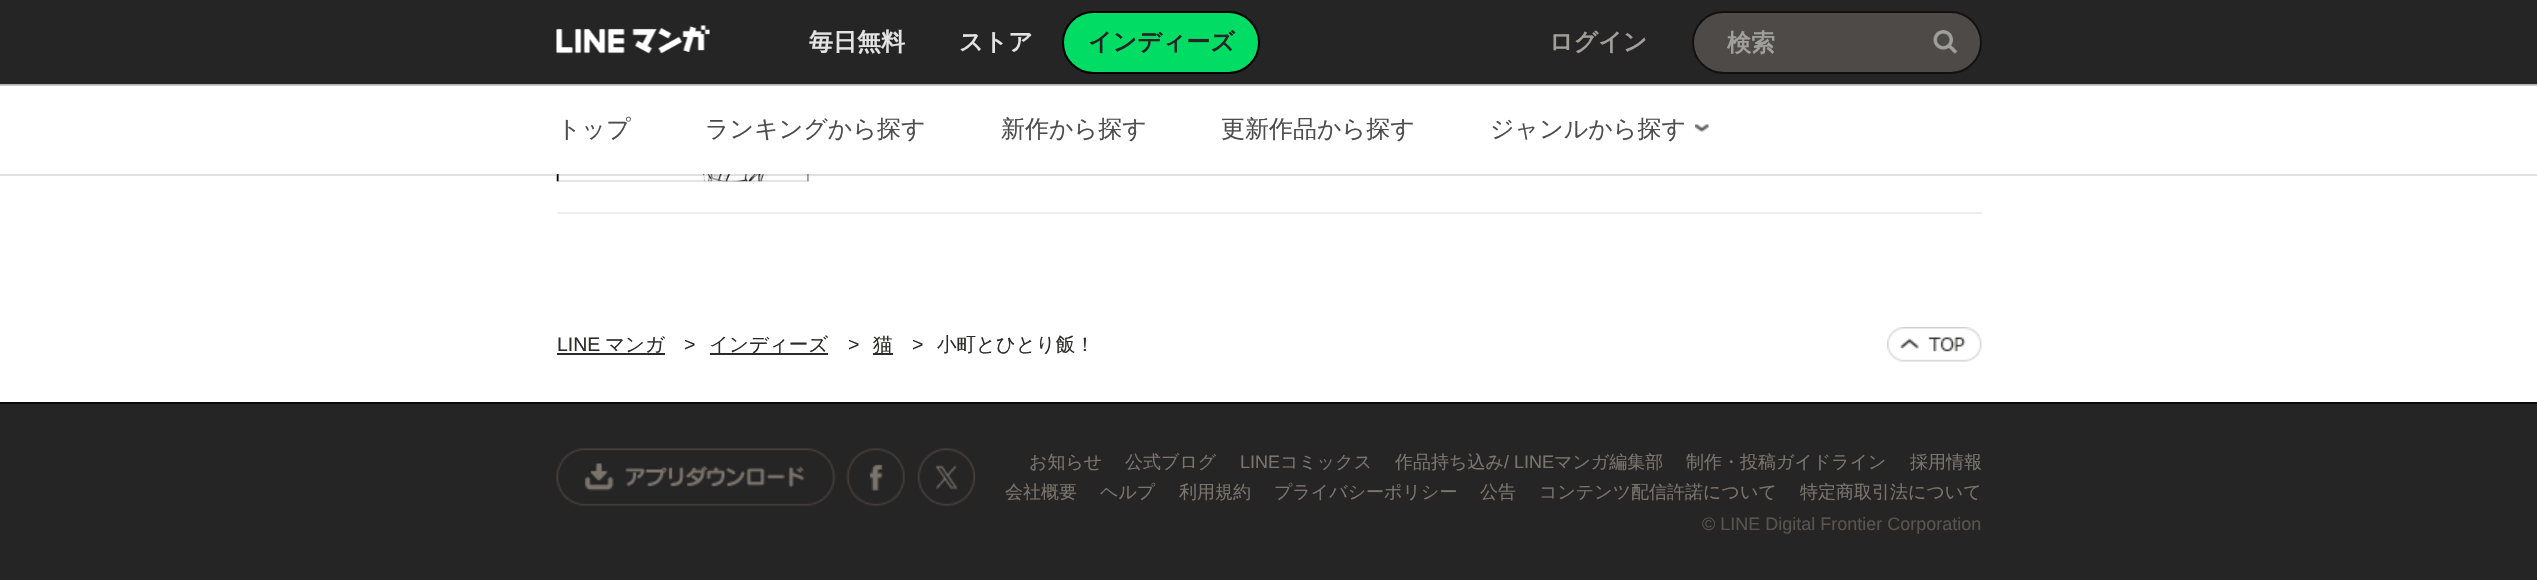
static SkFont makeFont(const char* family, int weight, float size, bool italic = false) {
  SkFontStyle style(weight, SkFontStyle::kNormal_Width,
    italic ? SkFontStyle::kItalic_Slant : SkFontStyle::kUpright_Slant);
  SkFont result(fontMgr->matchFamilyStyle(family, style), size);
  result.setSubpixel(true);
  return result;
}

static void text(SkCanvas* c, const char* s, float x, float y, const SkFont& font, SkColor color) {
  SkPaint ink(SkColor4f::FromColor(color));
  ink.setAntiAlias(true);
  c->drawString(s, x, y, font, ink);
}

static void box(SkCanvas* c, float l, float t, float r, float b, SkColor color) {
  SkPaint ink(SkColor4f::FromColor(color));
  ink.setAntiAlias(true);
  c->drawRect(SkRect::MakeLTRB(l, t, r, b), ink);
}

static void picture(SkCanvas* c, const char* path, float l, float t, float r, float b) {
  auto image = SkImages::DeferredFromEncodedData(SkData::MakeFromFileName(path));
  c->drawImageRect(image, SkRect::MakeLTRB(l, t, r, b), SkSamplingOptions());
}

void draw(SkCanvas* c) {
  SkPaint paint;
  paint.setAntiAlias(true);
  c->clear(0xffffffff);
  picture(c, "img_03.png", 556, 174, 809, 182);
  paint.setStyle(SkPaint::kStroke_Style);
  paint.setStrokeWidth(2);
  paint.setColor(0x1a000000);
  c->drawRect(SkRect::MakeLTRB(558, 24, 808, 181), paint);
  box(c, 0, 0, 2537, 84, 0xff262525);
  picture(c, "img_01.png", 556, 25, 710, 54);
  SkFont face1 = makeFont("WenQuanYi Zen Hei", 700, 24);
  text(c, "毎日無料", 809, 50, face1, 0xffe3e3e3);
  text(c, "ストア", 959, 50, face1, 0xffe3e3e3);
  paint.setStyle(SkPaint::kFill_Style);
  paint.setColor(0xff00dc64);
  c->drawRoundRect(SkRect::MakeLTRB(1063, 12, 1259, 73), 30.5f, 30.5f, paint);
  paint.setStyle(SkPaint::kStroke_Style);
  paint.setColor(0xff000000);
  c->drawRoundRect(SkRect::MakeLTRB(1063, 12, 1259, 73), 30.5f, 30.5f, paint);
  text(c, "インディーズ", 1088, 50, face1, 0xff262525);
  text(c, "ログイン", 1549, 50, face1, 0xffa19f9a);
  paint.setStyle(SkPaint::kFill_Style);
  paint.setColor(0xff4d4a48);
  c->drawRoundRect(SkRect::MakeLTRB(1693, 12, 1981, 73), 30.5f, 30.5f, paint);
  paint.setStyle(SkPaint::kStroke_Style);
  paint.setColor(0xff121111);
  c->drawRoundRect(SkRect::MakeLTRB(1693, 12, 1981, 73), 30.5f, 30.5f, paint);
  text(c, "検索", 1727, 51, face1, 0xffa19f9a);
  picture(c, "img_02.png", 1933, 30, 1958, 54);
  box(c, 557, 84, 809, 174, 0xffffffff);
  box(c, 0, 84, 2537, 85, 0x336f6b6b);
  box(c, 0, 84, 2537, 86, 0x33000000);
  box(c, 557, 212, 1982, 214, 0xffeeeeee);
  SkFont face2 = makeFont("WenQuanYi Zen Hei", 500, 24);
  text(c, "トップ", 557, 137, face2, 0xff4d4d4d);
  text(c, "ランキングから探す", 705, 137, face2, 0xff4d4d4d);
  text(c, "新作から探す", 1001, 137, face2, 0xff4d4d4d);
  text(c, "更新作品から探す", 1221, 137, face2, 0xff4d4d4d);
  text(c, "ジャンルから探す", 1490, 137, face2, 0xff4d4d4d);
  picture(c, "img_04.png", 1695, 124, 1709, 132);
  box(c, 0, 174, 2537, 176, 0x336f6b6b);
  SkFont face3 = makeFont("Liberation Sans", 400, 19.5f);
  text(c, "LINE", 557, 351, face3, 0xff2b2b2a);
  SkFont face4 = makeFont("WenQuanYi Zen Hei", 500, 19.5f);
  text(c, "マンガ", 605, 351, face4, 0xff2b2b2a);
  box(c, 557, 353, 665, 355, 0xff2b2b2a);
  text(c, ">", 684, 351, face3, 0xff2b2b2a);
  box(c, 710, 353, 828, 355, 0xff2b2b2a);
  text(c, "インディーズ", 709, 351, face4, 0xff2b2b2a);
  text(c, ">", 848, 351, face3, 0xff2b2b2a);
  box(c, 873, 353, 893, 355, 0xff2b2b2a);
  text(c, "猫", 873, 351, face4, 0xff2b2b2a);
  text(c, ">", 912, 351, face3, 0xff2b2b2a);
  text(c, "小町とひとり飯！", 937, 351, face4, 0xff2b2b2a);
  picture(c, "img_05.png", 1887, 327, 1982, 362);
  box(c, 0, 404, 2537, 580, 0xff262525);
  box(c, 0, 402, 2537, 404, 0xff0b0a0a);
  picture(c, "img_06.png", 556, 448, 836, 506);
  picture(c, "img_07.png", 846, 448, 905, 506);
  picture(c, "img_08.png", 917, 448, 975, 506);
  SkFont face5 = makeFont("WenQuanYi Zen Hei", 500, 18);
  text(c, "お知らせ", 1029, 468, face5, 0xff7a746c);
  text(c, "公式ブログ", 1125, 468, face5, 0xff7a746c);
  SkFont face6 = makeFont("Liberation Sans", 400, 18);
  text(c, "LINE", 1240, 468, face6, 0xff7a746c);
  text(c, "コミックス", 1280, 468, face5, 0xff7a746c);
  text(c, "作品持ち込み", 1395, 468, face5, 0xff7a746c);
  text(c, "/ LINE", 1504, 468, face6, 0xff7a746c);
  text(c, "マンガ編集部", 1554, 468, face5, 0xff7a746c);
  text(c, "制作・投稿ガイドライン", 1686, 468, face5, 0xff7a746c);
  text(c, "採用情報", 1910, 468, face5, 0xff7a746c);
  text(c, "会社概要", 1005, 498, face5, 0xff7a746c);
  text(c, "ヘルプ", 1100, 498, face5, 0xff7a746c);
  text(c, "利用規約", 1179, 498, face5, 0xff7a746c);
  text(c, "プライバシーポリシー", 1274, 498, face5, 0xff7a746c);
  text(c, "公告", 1480, 498, face5, 0xff7a746c);
  text(c, "コンテンツ配信許諾について", 1539, 498, face5, 0xff7a746c);
  text(c, "特定商取引法について", 1800, 498, face5, 0xff7a746c);
  text(c, "© LINE Digital Frontier Corporation", 1702, 530, face6, 0xff58544e);
}
